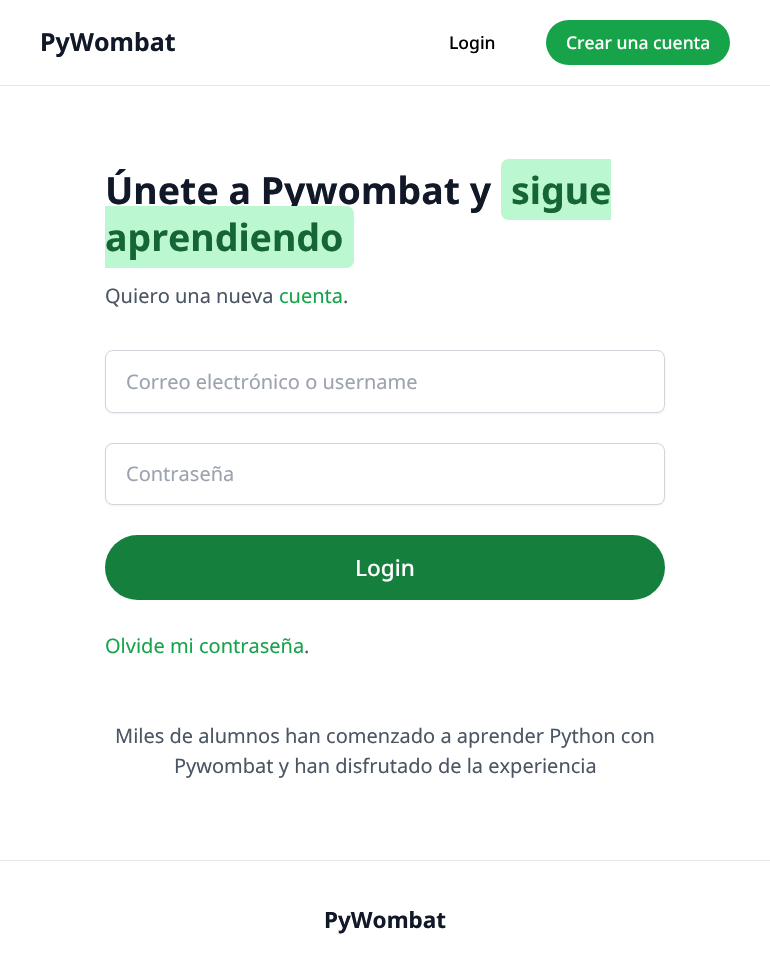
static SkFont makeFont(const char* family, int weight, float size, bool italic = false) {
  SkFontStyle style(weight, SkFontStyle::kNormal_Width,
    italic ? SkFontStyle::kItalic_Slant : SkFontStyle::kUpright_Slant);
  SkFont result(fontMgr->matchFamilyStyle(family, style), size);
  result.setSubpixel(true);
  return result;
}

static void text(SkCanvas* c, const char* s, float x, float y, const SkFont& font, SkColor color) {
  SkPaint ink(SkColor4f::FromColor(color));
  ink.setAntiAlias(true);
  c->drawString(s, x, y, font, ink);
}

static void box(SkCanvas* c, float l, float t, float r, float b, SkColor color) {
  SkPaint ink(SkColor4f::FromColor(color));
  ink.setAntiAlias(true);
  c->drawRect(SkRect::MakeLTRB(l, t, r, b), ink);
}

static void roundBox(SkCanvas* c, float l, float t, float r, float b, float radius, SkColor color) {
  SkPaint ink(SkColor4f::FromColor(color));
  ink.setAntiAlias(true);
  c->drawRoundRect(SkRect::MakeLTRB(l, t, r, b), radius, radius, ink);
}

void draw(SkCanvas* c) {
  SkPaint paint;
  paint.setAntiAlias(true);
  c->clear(0xffffffff);
  box(c, 0, 85, 770, 86, 0xffe5e7eb);
  SkFont face1 = makeFont("Noto Sans", 700, 25);
  text(c, "PyWombat", 40, 51, face1, 0xff111827);
  SkFont face2 = makeFont("Noto Sans", 500, 17.5f);
  text(c, "Login", 449, 49, face2, 0xff000000);
  roundBox(c, 546, 20, 730, 65, 22.5f, 0xff16a34a);
  text(c, "Crear una cuenta", 566, 49, face2, 0xffffffff);
  SkFont face3 = makeFont("Noto Sans", 700, 37.5f);
  text(c, "Únete a Pywombat y", 105, 204, face3, 0xff111827);
  paint.setColor(0xffbbf7d0);
  c->drawPath(SkPathBuilder().moveTo(509, 159).lineTo(611, 159).lineTo(611, 220).lineTo(509, 220).cubicTo(504.5f, 220, 501, 216.5f, 501, 212).lineTo(501, 167).cubicTo(501, 162.5f, 504.5f, 159, 509, 159).close().detach(), paint);
  text(c, "sigue", 511, 204, face3, 0xff166534);
  c->drawPath(SkPathBuilder().moveTo(105, 206).lineTo(346, 206).cubicTo(350.5f, 206, 354, 209.5f, 354, 214).lineTo(354, 260).cubicTo(354, 264.5f, 350.5f, 268, 346, 268).lineTo(105, 268).close().detach(), paint);
  text(c, "aprendiendo", 105, 251, face3, 0xff166534);
  SkFont face4 = makeFont("Noto Sans", 400, 20);
  text(c, "Quiero una nueva", 105, 303, face4, 0xff4b5563);
  text(c, "cuenta", 279, 303, face4, 0xff16a34a);
  text(c, ".", 343, 303, face4, 0xff4b5563);
  paint.setColor(0x0d000000);
  paint.setMaskFilter(SkMaskFilter::MakeBlur(kNormal_SkBlurStyle, 1));
  c->drawRoundRect(SkRect::MakeLTRB(105, 351, 665, 414), 8, 8, paint);
  paint.setMaskFilter(nullptr);
  paint.setColor(0xffffffff);
  c->drawRoundRect(SkRect::MakeLTRB(105.5f, 350.5f, 664.5f, 412.5f), 7.5f, 7.5f, paint);
  paint.setStyle(SkPaint::kStroke_Style);
  paint.setStrokeWidth(1);
  paint.setColor(0xffd1d5db);
  c->drawRoundRect(SkRect::MakeLTRB(105.5f, 350.5f, 664.5f, 412.5f), 7.5f, 7.5f, paint);
  text(c, "Correo electrónico o username", 126, 389, face4, 0xff9ca3af);
  paint.setStyle(SkPaint::kFill_Style);
  paint.setColor(0x0d000000);
  paint.setMaskFilter(SkMaskFilter::MakeBlur(kNormal_SkBlurStyle, 1));
  c->drawRoundRect(SkRect::MakeLTRB(105, 444, 665, 506), 8, 8, paint);
  paint.setMaskFilter(nullptr);
  paint.setColor(0xffffffff);
  c->drawRoundRect(SkRect::MakeLTRB(105.5f, 443.5f, 664.5f, 504.5f), 7.5f, 7.5f, paint);
  paint.setStyle(SkPaint::kStroke_Style);
  paint.setColor(0xffd1d5db);
  c->drawRoundRect(SkRect::MakeLTRB(105.5f, 443.5f, 664.5f, 504.5f), 7.5f, 7.5f, paint);
  text(c, "Contraseña", 126, 481, face4, 0xff9ca3af);
  roundBox(c, 105, 535, 665, 600, 32.5f, 0xff15803d);
  SkFont face5 = makeFont("Noto Sans", 500, 22.5f);
  text(c, "Login", 355, 576, face5, 0xffffffff);
  text(c, "Olvide mi contraseña", 105, 653, face4, 0xff16a34a);
  text(c, ".", 304, 653, face4, 0xff4b5563);
  text(c, "Miles de alumnos han comenzado a aprender Python con", 115, 743, face4, 0xff4b5563);
  text(c, "Pywombat y han disfrutado de la experiencia", 174, 773, face4, 0xff4b5563);
  box(c, 0, 860, 770, 861, 0xffe5e7eb);
  SkFont face6 = makeFont("Noto Sans", 700, 22.5f);
  text(c, "PyWombat", 324, 928, face6, 0xff111827);
}
